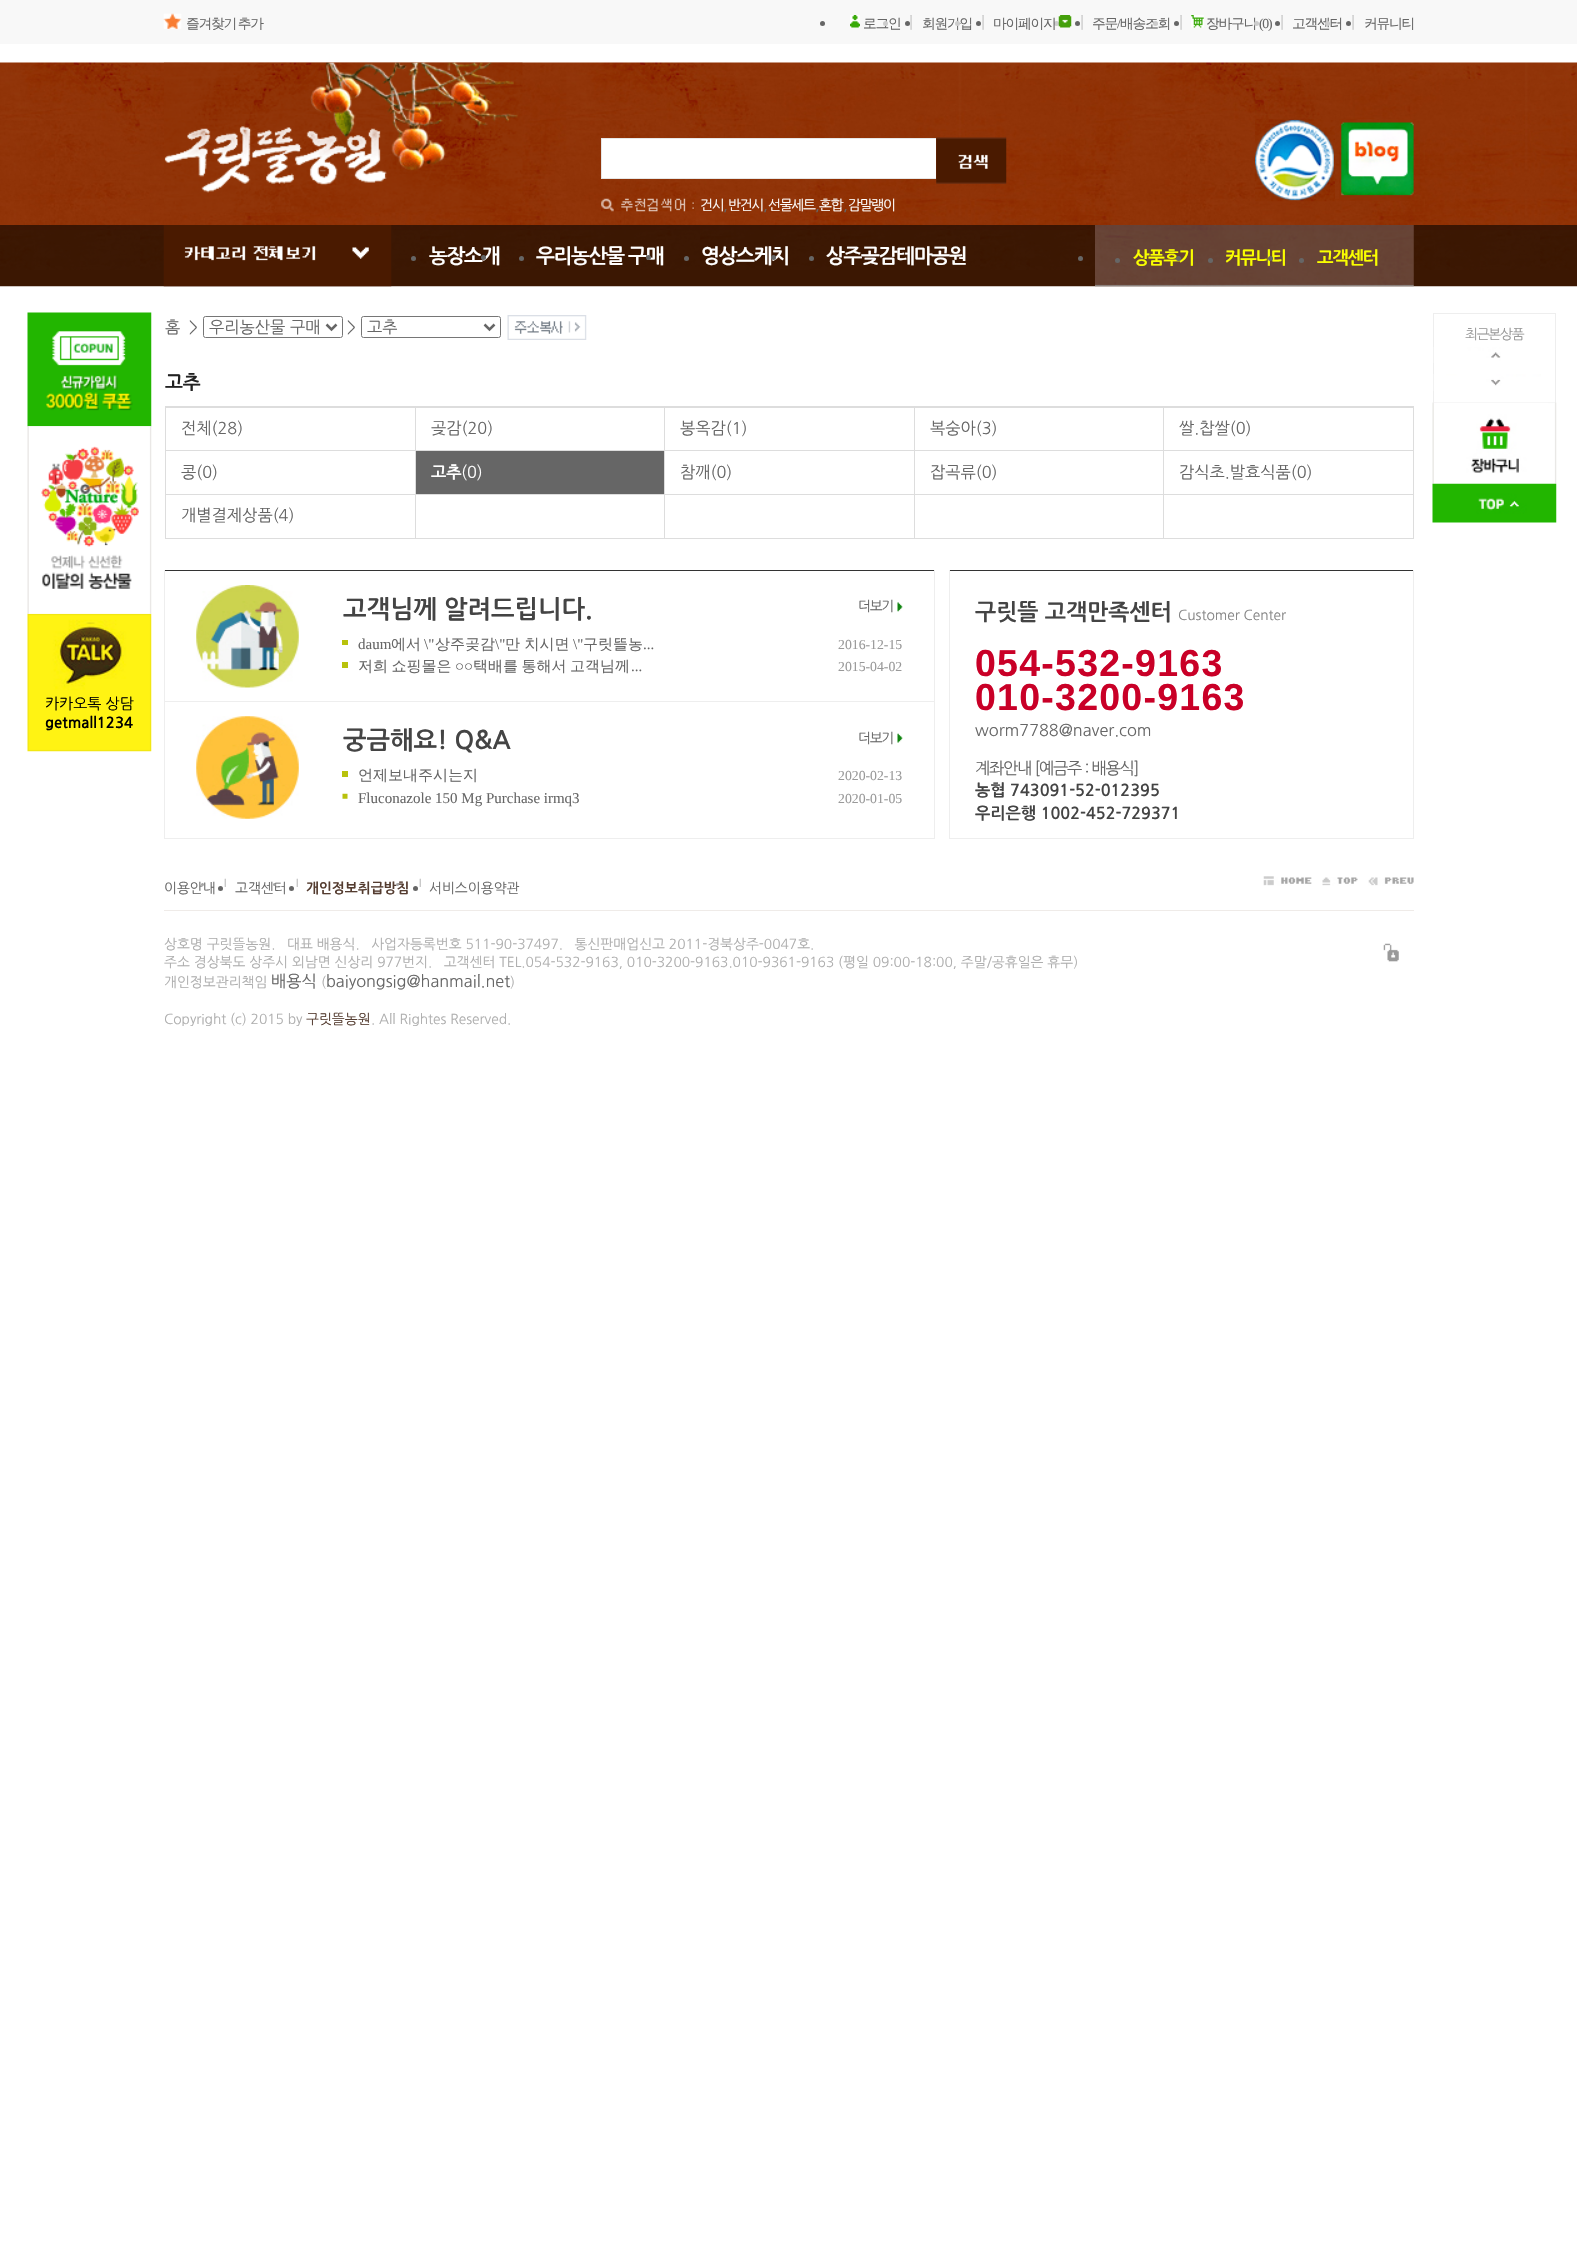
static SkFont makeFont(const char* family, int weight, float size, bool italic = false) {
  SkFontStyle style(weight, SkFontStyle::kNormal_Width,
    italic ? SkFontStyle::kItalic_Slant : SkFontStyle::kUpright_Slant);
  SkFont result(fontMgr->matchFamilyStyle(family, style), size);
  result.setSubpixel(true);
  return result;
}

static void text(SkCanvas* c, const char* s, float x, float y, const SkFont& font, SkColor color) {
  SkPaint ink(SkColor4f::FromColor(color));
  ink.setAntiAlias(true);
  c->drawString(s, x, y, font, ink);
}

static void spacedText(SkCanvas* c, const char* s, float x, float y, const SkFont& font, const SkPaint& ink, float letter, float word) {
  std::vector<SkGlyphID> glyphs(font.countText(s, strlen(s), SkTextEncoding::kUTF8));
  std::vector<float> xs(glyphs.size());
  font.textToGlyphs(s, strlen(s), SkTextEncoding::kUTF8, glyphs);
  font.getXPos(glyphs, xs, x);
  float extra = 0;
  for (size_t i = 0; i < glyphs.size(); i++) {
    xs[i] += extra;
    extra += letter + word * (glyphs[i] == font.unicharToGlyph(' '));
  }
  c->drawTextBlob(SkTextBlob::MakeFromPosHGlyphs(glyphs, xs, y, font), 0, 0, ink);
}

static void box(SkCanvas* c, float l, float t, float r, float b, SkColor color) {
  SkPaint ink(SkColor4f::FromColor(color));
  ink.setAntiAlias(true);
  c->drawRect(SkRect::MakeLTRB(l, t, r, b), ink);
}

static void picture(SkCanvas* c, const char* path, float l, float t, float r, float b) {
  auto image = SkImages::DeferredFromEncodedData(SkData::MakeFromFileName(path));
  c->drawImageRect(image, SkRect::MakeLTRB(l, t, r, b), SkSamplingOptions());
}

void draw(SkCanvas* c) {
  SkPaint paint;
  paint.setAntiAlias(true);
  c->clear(0xffffffff);
  box(c, 0, 0, 1577, 44, 0xfff8f8f8);
  picture(c, "img_01.png", 163, 13, 182, 29);
  SkFont face1 = makeFont("WenQuanYi Zen Hei", 500, 13.75f);
  paint.setColor(0xff666666);
  spacedText(c, "즐겨찾기 추가", 186, 28, face1, paint, -1.25f, -1);
  picture(c, "img_02.png", 850, 15, 860, 28);
  c->drawCircle(822.5f, 23.5f, 2.5f, paint);
  spacedText(c, "로그인", 863, 28, face1, paint, -1.25f, 0);
  paint.setColor(0xffcccccc);
  c->drawCircle(885.5f, 23.5f, 2.5f, paint);
  SkFont face2 = makeFont("NanumGothic", 400, 16.25f);
  text(c, "|", 909, 28, face2, 0xffcccccc);
  paint.setColor(0xff666666);
  c->drawCircle(907.5f, 23.5f, 2.5f, paint);
  spacedText(c, "회원가입", 922, 28, face1, paint, -1.25f, 0);
  paint.setColor(0xffcccccc);
  c->drawCircle(957.5f, 23.5f, 2.5f, paint);
  text(c, "|", 981, 28, face2, 0xffcccccc);
  c->drawCircle(1056.5f, 23.5f, 2.5f, paint);
  picture(c, "img_03.png", 1058, 15, 1072, 28);
  paint.setColor(0xff666666);
  c->drawCircle(978.5f, 23.5f, 2.5f, paint);
  spacedText(c, "마이페이지", 993, 28, face1, paint, -1.25f, 0);
  text(c, "|", 1080, 28, face2, 0xffcccccc);
  c->drawCircle(1077.5f, 23.5f, 2.5f, paint);
  spacedText(c, "주문", 1092, 28, face1, paint, -1.25f, 0);
  SkFont face3 = makeFont("Liberation Serif", 400, 13.75f);
  spacedText(c, "/", 1117, 28, face3, paint, -1.25f, 0);
  spacedText(c, "배송조회", 1120, 28, face1, paint, -1.25f, 0);
  paint.setColor(0xffcccccc);
  c->drawCircle(1155.5f, 23.5f, 2.5f, paint);
  text(c, "|", 1179, 28, face2, 0xffcccccc);
  picture(c, "img_04.png", 1191, 15, 1204, 28);
  paint.setColor(0xff666666);
  c->drawCircle(1176.5f, 23.5f, 2.5f, paint);
  spacedText(c, "장바구니", 1206, 28, face1, paint, -1.25f, 0);
  spacedText(c, "(0)", 1259, 28, face3, paint, -1.25f, 0);
  paint.setColor(0xffcccccc);
  c->drawCircle(1256.5f, 23.5f, 2.5f, paint);
  text(c, "|", 1280, 28, face2, 0xffcccccc);
  paint.setColor(0xff666666);
  c->drawCircle(1277.5f, 23.5f, 2.5f, paint);
  spacedText(c, "고객센터", 1292, 28, face1, paint, -1.25f, 0);
  paint.setColor(0xffcccccc);
  c->drawCircle(1327.5f, 23.5f, 2.5f, paint);
  text(c, "|", 1351, 28, face2, 0xffcccccc);
  paint.setColor(0xff666666);
  c->drawCircle(1348.5f, 23.5f, 2.5f, paint);
  spacedText(c, "커뮤니티", 1364, 28, face1, paint, -1.25f, 0);
  picture(c, "img_05.png", 0, 62, 1577, 225);
  picture(c, "img_06.png", 164, 62, 523, 213);
  picture(c, "img_07.png", 1255, 119, 1335, 202);
  picture(c, "img_08.png", 1339, 119, 1414, 201);
  box(c, 602, 139, 936, 178, 0xffffffff);
  box(c, 601, 138, 936, 139, 0xffe6e6e6);
  box(c, 601, 178, 936, 179, 0xffe6e6e6);
  box(c, 601, 138, 602, 179, 0xffe6e6e6);
  picture(c, "img_09.png", 936, 137, 1007, 184);
  picture(c, "img_10.png", 601, 198, 695, 212);
  SkFont face4 = makeFont("NanumGothic", 400, 13.75f);
  paint.setColor(0xffffffff);
  spacedText(c, "건시", 700, 210, face4, paint, -1.25f, 0);
  text(c, ",", 723, 210, face2, 0xff666666);
  spacedText(c, "반건시", 728, 210, face4, paint, -1.25f, 0);
  text(c, ",", 763, 210, face2, 0xff666666);
  spacedText(c, "선물세트", 768, 210, face4, paint, -1.25f, 0);
  text(c, ",", 815, 210, face2, 0xff666666);
  spacedText(c, "혼합", 819, 210, face4, paint, -1.25f, 0);
  text(c, ",", 843, 210, face2, 0xff666666);
  spacedText(c, "감말랭이", 848, 210, face4, paint, -1.25f, 0);
  picture(c, "img_11.png", 0, 225, 1577, 287);
  picture(c, "img_12.png", 163, 225, 392, 287);
  paint.setColor(0xff666666);
  c->drawCircle(413.5f, 258.5f, 2.5f, paint);
  SkFont face5 = makeFont("NanumGothic", 700, 20);
  paint.setColor(0xffffffff);
  spacedText(c, "농장소개", 429, 263, face5, paint, -1.25f, 0);
  paint.setColor(0xff666666);
  c->drawCircle(521.5f, 258.5f, 2.5f, paint);
  paint.setColor(0xffffffff);
  spacedText(c, "우리농산물 구매", 536, 263, face5, paint, -1.25f, 0);
  paint.setColor(0xff666666);
  c->drawCircle(686.5f, 258.5f, 2.5f, paint);
  paint.setColor(0xffffffff);
  spacedText(c, "영상스케치", 701, 263, face5, paint, -1.25f, 0);
  paint.setColor(0xff666666);
  c->drawCircle(811.5f, 258.5f, 2.5f, paint);
  paint.setColor(0xffffffff);
  spacedText(c, "상주곶감테마공원", 826, 263, face5, paint, -1.25f, 0);
  paint.setColor(0xff666666);
  c->drawCircle(483.5f, 257.5f, 2.5f, paint);
  c->drawCircle(648.5f, 257.5f, 2.5f, paint);
  c->drawCircle(773.5f, 257.5f, 2.5f, paint);
  picture(c, "img_13.png", 1095, 225, 1414, 287);
  c->drawCircle(1080.5f, 258.5f, 2.5f, paint);
  c->drawCircle(1117.5f, 260.5f, 2.5f, paint);
  SkFont face6 = makeFont("NanumGothic", 700, 17.5f);
  paint.setColor(0xfffaff00);
  spacedText(c, "상품후기", 1133, 264, face6, paint, -1.25f, 0);
  paint.setColor(0xff666666);
  c->drawCircle(1210.5f, 260.5f, 2.5f, paint);
  paint.setColor(0xfffaff00);
  spacedText(c, "커뮤니티", 1225, 264, face6, paint, -1.25f, 0);
  paint.setColor(0xff666666);
  c->drawCircle(1301.5f, 260.5f, 2.5f, paint);
  paint.setColor(0xfffaff00);
  spacedText(c, "고객센터", 1317, 264, face6, paint, -1.25f, 0);
  paint.setColor(0xff666666);
  c->drawCircle(1178.5f, 258.5f, 2.5f, paint);
  c->drawCircle(1270.5f, 258.5f, 2.5f, paint);
  text(c, "홈", 165, 333, face2, 0xff666666);
  text(c, ">", 189, 333, face2, 0xff666666);
  paint.setStyle(SkPaint::kStroke_Style);
  paint.setStrokeWidth(1);
  paint.setColor(0xff767676);
  c->drawRoundRect(SkRect::MakeLTRB(203.5f, 316.5f, 342.5f, 337.5f), 2, 2, paint);
  paint.setStrokeWidth(2.5f);
  paint.setColor(0xff666666);
  c->drawPath(SkPathBuilder().moveTo(326.5f, 324.5f).lineTo(331.5f, 329.5f).lineTo(336.5f, 324.5f).detach(), paint);
  text(c, "우리농산물 구매", 209, 333, face2, 0xff666666);
  text(c, ">", 347, 333, face2, 0xff666666);
  paint.setStrokeWidth(1);
  paint.setColor(0xff767676);
  c->drawRoundRect(SkRect::MakeLTRB(361.5f, 316.5f, 500.5f, 337.5f), 2, 2, paint);
  paint.setStrokeWidth(2.5f);
  paint.setColor(0xff666666);
  c->drawPath(SkPathBuilder().moveTo(484.5f, 324.5f).lineTo(489.5f, 329.5f).lineTo(494.5f, 324.5f).detach(), paint);
  text(c, "고추", 367, 333, face2, 0xff666666);
  picture(c, "img_14.png", 507, 315, 587, 340);
  SkFont face7 = makeFont("NanumGothic", 700, 19);
  text(c, "고추", 165, 389, face7, 0xff222222);
  box(c, 165, 406, 1414, 539, 0xffdddddd);
  box(c, 166, 408, 415, 450, 0xffffffff);
  text(c, "전체(28)", 181, 434, face2, 0xff666666);
  box(c, 416, 408, 664, 450, 0xffffffff);
  text(c, "곶감(20)", 431, 434, face2, 0xff666666);
  box(c, 665, 408, 914, 450, 0xffffffff);
  text(c, "봉옥감(1)", 680, 434, face2, 0xff666666);
  box(c, 915, 408, 1163, 450, 0xffffffff);
  text(c, "복숭아(3)", 930, 434, face2, 0xff666666);
  box(c, 1164, 408, 1413, 450, 0xffffffff);
  text(c, "쌀.찹쌀(0)", 1179, 434, face2, 0xff666666);
  box(c, 166, 451, 415, 494, 0xffffffff);
  text(c, "콩(0)", 181, 478, face2, 0xff666666);
  box(c, 416, 451, 664, 494, 0xff666666);
  SkFont face8 = makeFont("NanumGothic", 700, 16.25f);
  text(c, "고추", 431, 478, face8, 0xffffffff);
  text(c, "(0)", 461, 478, face2, 0xffffffff);
  box(c, 665, 451, 914, 494, 0xffffffff);
  text(c, "참깨(0)", 680, 478, face2, 0xff666666);
  box(c, 915, 451, 1163, 494, 0xffffffff);
  text(c, "잡곡류(0)", 930, 478, face2, 0xff666666);
  box(c, 1164, 451, 1413, 494, 0xffffffff);
  text(c, "감식초.발효식품(0)", 1179, 478, face2, 0xff666666);
  box(c, 166, 495, 415, 538, 0xffffffff);
  text(c, "개별결제상품(4)", 181, 521, face2, 0xff666666);
  box(c, 416, 495, 664, 538, 0xffffffff);
  box(c, 665, 495, 914, 538, 0xffffffff);
  box(c, 915, 495, 1163, 538, 0xffffffff);
  box(c, 1164, 495, 1413, 538, 0xffffffff);
  paint.setStrokeWidth(1);
  paint.setColor(0xffeeeeee);
  c->drawRect(SkRect::MakeLTRB(1433.5f, 313.5f, 1555.5f, 402.5f), paint);
  paint.setStyle(SkPaint::kFill_Style);
  paint.setColor(0xff999999);
  spacedText(c, "최근본상품", 1465, 339, face4, paint, -1.25f, 0);
  picture(c, "img_15.png", 1433, 347, 1501, 363);
  picture(c, "img_16.png", 1433, 374, 1541, 391);
  picture(c, "img_17.png", 1432, 402, 1557, 484);
  picture(c, "img_18.png", 1432, 483, 1557, 523);
  picture(c, "img_19.png", 27, 312, 152, 427);
  picture(c, "img_21.png", 27, 613, 152, 752);
  picture(c, "img_20.png", 27, 426, 152, 614);
  SkFont face9 = makeFont("NanumGothic", 400, 15);
  text(c, "카카오톡 상담", 45, 709, face9, 0xff000000);
  SkFont face10 = makeFont("NanumGothic", 700, 15);
  text(c, "getmall1234", 45, 728, face10, 0xff000000);
  box(c, 164, 570, 935, 571, 0xff333333);
  box(c, 934, 570, 935, 839, 0xffeeeeee);
  box(c, 164, 838, 935, 839, 0xffeeeeee);
  box(c, 164, 570, 165, 839, 0xffeeeeee);
  picture(c, "img_22.png", 196, 585, 299, 688);
  box(c, 165, 701, 934, 702, 0xffeeeeee);
  SkFont face11 = makeFont("NanumGothic", 700, 25);
  text(c, "고객님께 알려드립니다.", 343, 618, face11, 0xff444444);
  paint.setColor(0xff666666);
  spacedText(c, "더보기", 858, 611, face4, paint, -1.25f, 0);
  picture(c, "img_23.png", 897, 602, 903, 612);
  SkFont face12 = makeFont("Liberation Serif", 400, 15);
  text(c, "daum", 358, 649, face12, 0xff666666);
  box(c, 342, 640, 348, 645, 0xffb8c20c);
  SkFont face13 = makeFont("WenQuanYi Zen Hei", 500, 15);
  text(c, "에서", 391, 649, face13, 0xff666666);
  text(c, "\\\"", 424, 649, face12, 0xff666666);
  text(c, "상주곶감", 435, 649, face13, 0xff666666);
  text(c, "\\\"", 495, 649, face12, 0xff666666);
  text(c, "만 치시면", 505, 649, face13, 0xff666666);
  text(c, "\\\"", 573, 649, face12, 0xff666666);
  text(c, "구릿뜰농", 583, 649, face13, 0xff666666);
  text(c, "...", 643, 649, face12, 0xff666666);
  text(c, "2016-12-15", 838, 649, face3, 0xff999999);
  spacedText(c, "저희 쇼핑몰은", 358, 671, face13, paint, 0, -1);
  box(c, 342, 662, 348, 668, 0xffb8c20c);
  text(c, "○○", 455, 671, face12, 0xff666666);
  spacedText(c, "택배를 통해서 고객님께", 473, 671, face13, paint, 0, -1);
  text(c, "...", 631, 671, face12, 0xff666666);
  text(c, "2015-04-02", 838, 671, face3, 0xff999999);
  picture(c, "img_24.png", 196, 716, 299, 819);
  text(c, "궁금해요! Q&A", 343, 749, face11, 0xff444444);
  spacedText(c, "더보기", 858, 743, face4, paint, -1.25f, 0);
  picture(c, "img_25.png", 897, 733, 903, 743);
  text(c, "언제보내주시는지", 358, 780, face13, 0xff666666);
  box(c, 342, 771, 348, 777, 0xffb8c20c);
  text(c, "2020-02-13", 838, 780, face3, 0xff999999);
  picture(c, "img_26.png", 342, 793, 348, 799);
  text(c, "Fluconazole 150 Mg Purchase irmq3", 358, 803, face12, 0xff666666);
  text(c, "2020-01-05", 838, 803, face3, 0xff999999);
  box(c, 949, 570, 1414, 571, 0xff333333);
  box(c, 1413, 570, 1414, 839, 0xffeeeeee);
  box(c, 949, 838, 1414, 839, 0xffeeeeee);
  box(c, 949, 570, 950, 839, 0xffeeeeee);
  SkFont face14 = makeFont("NanumGothic", 700, 22.5f);
  text(c, "구릿뜰 고객만족센터", 975, 620, face14, 0xff444444);
  text(c, "Customer Center", 1178, 620, face4, 0xff848484);
  SkFont face15 = makeFont("Liberation Sans", 700, 37.5f);
  paint.setColor(0xffc90027);
  spacedText(c, "054-532-9163", 975, 676, face15, paint, 1.25f, 0);
  spacedText(c, "010-3200-9163", 975, 710, face15, paint, 1.25f, 0);
  text(c, "worm7788@naver.com", 975, 736, face2, 0xff666666);
  paint.setColor(0xff666666);
  spacedText(c, "계좌안내 [예금주 : 배용식]", 975, 774, face2, paint, -1.25f, 0);
  text(c, "농협 743091-52-012395", 975, 796, face8, 0xff444444);
  text(c, "우리은행 1002-452-729371", 975, 819, face8, 0xff444444);
  box(c, 164, 910, 1414, 911, 0xffefebe8);
  text(c, "이용안내", 164, 893, face4, 0xff666666);
  paint.setColor(0xffa3a3a3);
  c->drawCircle(202.5f, 884.5f, 1.5f, paint);
  SkFont face16 = makeFont("NanumGothic", 400, 9);
  text(c, "|", 224, 886, face16, 0xffa3a3a3);
  paint.setColor(0xff666666);
  c->drawCircle(220.5f, 888.5f, 2.5f, paint);
  text(c, "고객센터", 235, 893, face4, 0xff666666);
  paint.setColor(0xffa3a3a3);
  c->drawCircle(274.5f, 884.5f, 1.5f, paint);
  text(c, "|", 296, 886, face16, 0xffa3a3a3);
  paint.setColor(0xff666666);
  c->drawCircle(291.5f, 888.5f, 2.5f, paint);
  SkFont face17 = makeFont("NanumGothic", 700, 13.75f);
  text(c, "개인정보취급방침", 306, 893, face17, 0xff543c30);
  paint.setColor(0xffa3a3a3);
  c->drawCircle(397.5f, 884.5f, 1.5f, paint);
  text(c, "|", 419, 886, face16, 0xffa3a3a3);
  paint.setColor(0xff666666);
  c->drawCircle(415.5f, 888.5f, 2.5f, paint);
  text(c, "서비스이용약관", 429, 893, face4, 0xff666666);
  picture(c, "img_27.png", 1263, 876, 1312, 886);
  picture(c, "img_28.png", 1322, 877, 1358, 886);
  picture(c, "img_29.png", 1368, 877, 1414, 886);
  text(c, "상호명 구릿뜰농원.   대표 배용식.   사업자등록번호 511-90-37497.   통신판매업신고 2011-경북상주-0047호.", 164, 949, face4, 0xffaeaeae);
  text(c, "주소 경상북도 상주시 외남면 신상리 977번지.   고객센터 TEL.054-532-9163, 010-3200-9163.010-9361-9163 (평일 09:00-18:00, 주말/공휴일은 휴무)", 164, 967, face4, 0xffaeaeae);
  text(c, "개인정보관리책임", 164, 987, face4, 0xffaeaeae);
  text(c, "배용식", 271, 987, face2, 0xff666666);
  text(c, "(", 321, 987, face4, 0xffaeaeae);
  text(c, "baiyongsig@hanmail.net", 326, 987, face2, 0xff666666);
  text(c, ")", 510, 987, face4, 0xffaeaeae);
  picture(c, "img_30.png", 1383, 943, 1399, 962);
  text(c, "Copyright (c) 2015 by", 164, 1024, face4, 0xffaeaeae);
  text(c, "구릿뜰농원", 306, 1024, face4, 0xff543c30);
  text(c, ". All Rightes Reserved.", 371, 1024, face4, 0xffaeaeae);
}
